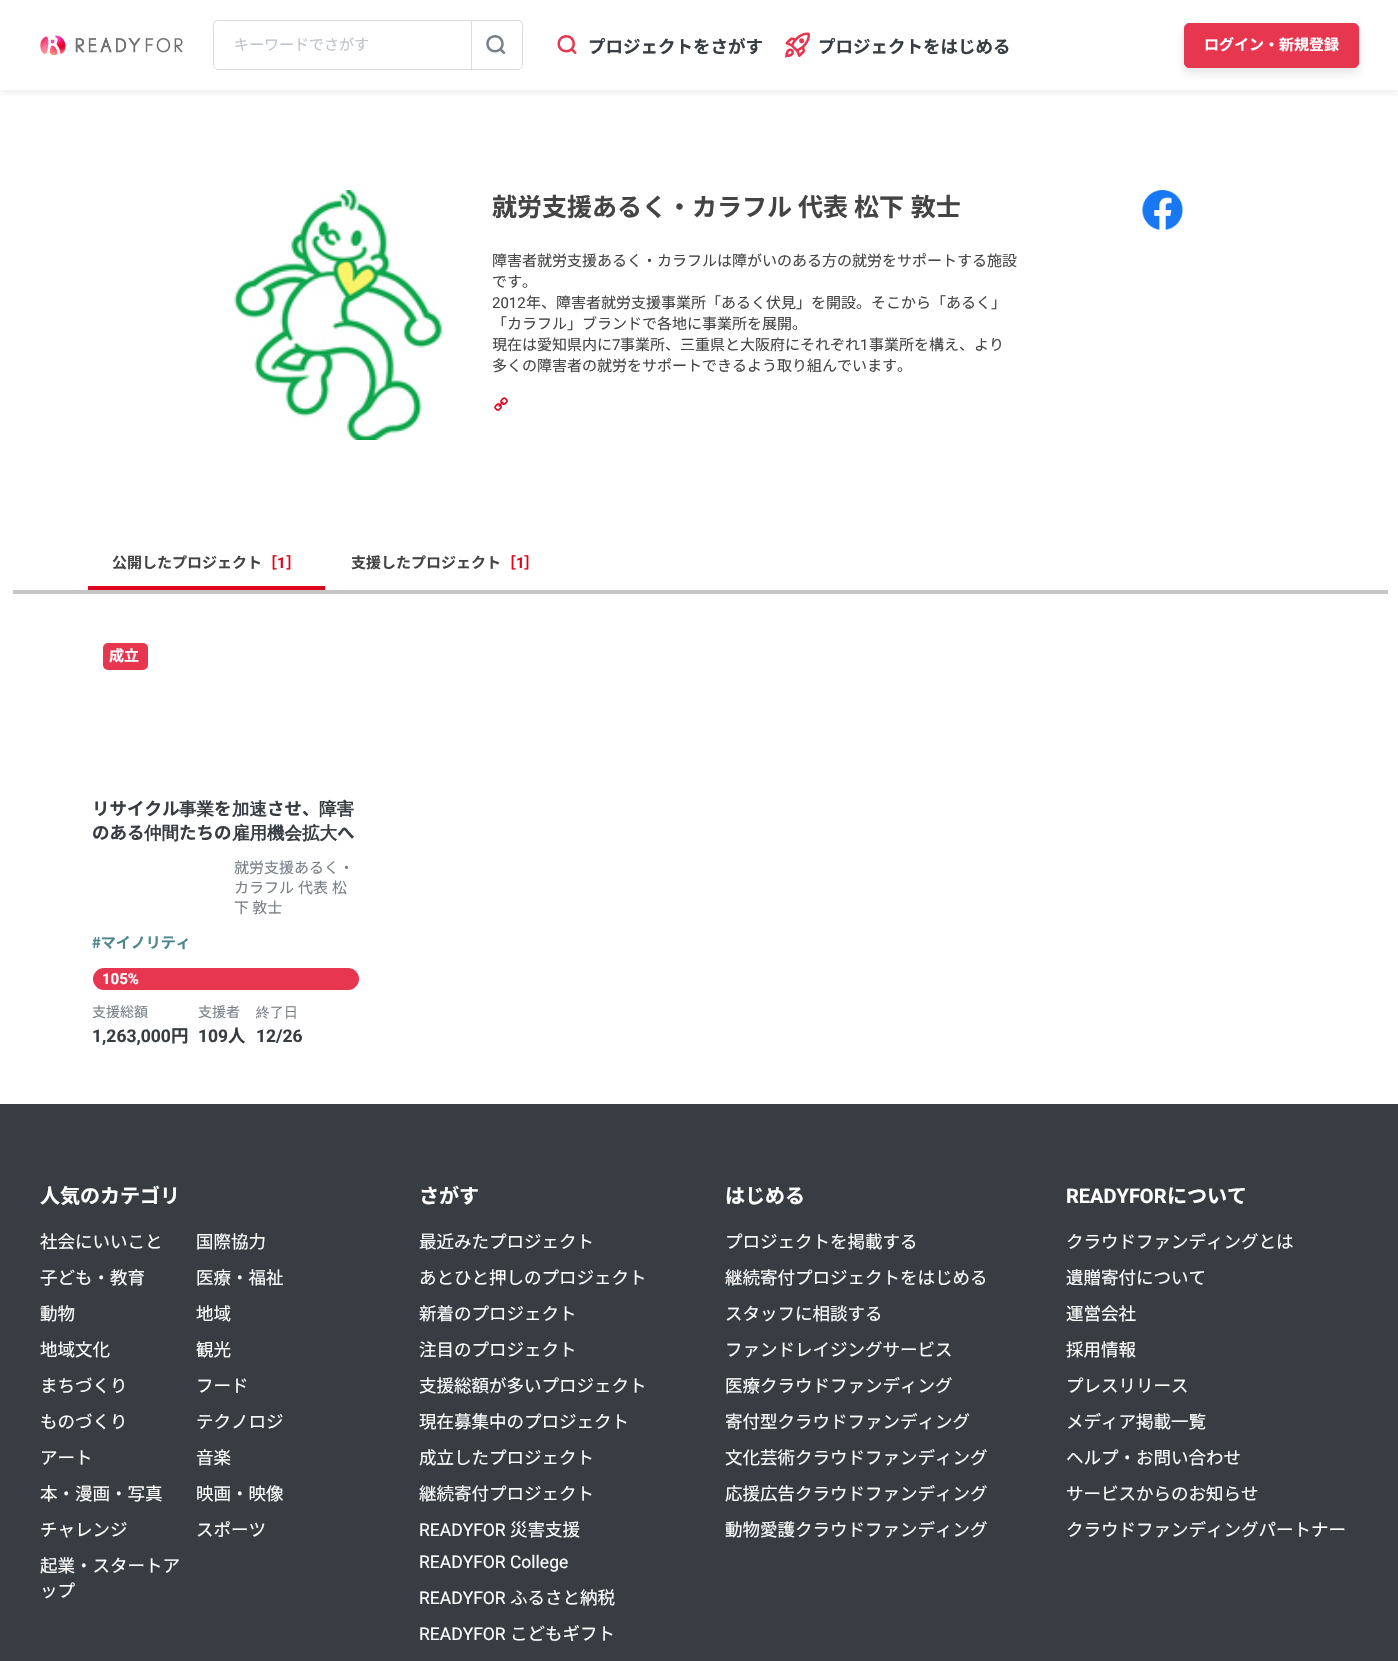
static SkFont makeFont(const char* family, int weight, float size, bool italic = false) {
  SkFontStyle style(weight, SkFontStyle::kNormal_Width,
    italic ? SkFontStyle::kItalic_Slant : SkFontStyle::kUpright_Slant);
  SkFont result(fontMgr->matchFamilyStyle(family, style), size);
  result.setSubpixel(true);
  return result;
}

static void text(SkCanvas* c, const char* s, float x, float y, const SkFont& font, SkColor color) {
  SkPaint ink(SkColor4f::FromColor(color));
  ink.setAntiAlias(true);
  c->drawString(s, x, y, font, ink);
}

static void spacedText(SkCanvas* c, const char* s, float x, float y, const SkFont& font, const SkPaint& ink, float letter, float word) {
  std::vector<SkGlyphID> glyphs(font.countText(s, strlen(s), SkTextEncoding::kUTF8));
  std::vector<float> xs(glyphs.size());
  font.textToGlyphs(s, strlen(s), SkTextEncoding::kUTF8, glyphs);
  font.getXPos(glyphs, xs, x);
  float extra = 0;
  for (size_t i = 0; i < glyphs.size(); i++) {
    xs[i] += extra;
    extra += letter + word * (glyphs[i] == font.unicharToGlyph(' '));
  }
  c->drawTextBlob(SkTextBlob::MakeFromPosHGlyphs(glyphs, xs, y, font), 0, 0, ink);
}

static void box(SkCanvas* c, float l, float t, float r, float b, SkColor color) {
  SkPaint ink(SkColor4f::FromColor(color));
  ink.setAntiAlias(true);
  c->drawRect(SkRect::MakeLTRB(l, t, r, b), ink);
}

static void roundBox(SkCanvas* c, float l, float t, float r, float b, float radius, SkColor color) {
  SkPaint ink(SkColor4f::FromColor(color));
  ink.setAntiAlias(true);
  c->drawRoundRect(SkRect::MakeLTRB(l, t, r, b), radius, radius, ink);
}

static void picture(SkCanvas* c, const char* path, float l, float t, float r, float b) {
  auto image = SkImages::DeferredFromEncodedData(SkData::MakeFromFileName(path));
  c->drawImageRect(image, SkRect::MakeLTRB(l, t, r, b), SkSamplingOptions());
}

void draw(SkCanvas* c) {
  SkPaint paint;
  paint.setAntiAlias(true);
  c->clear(0xffffffff);
  c->save();
  c->clipRect(SkRect::MakeLTRB(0, 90, 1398, 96));
  paint.setColor(0x14212325);
  paint.setMaskFilter(SkMaskFilter::MakeBlur(kNormal_SkBlurStyle, 4));
  c->drawRect(SkRect::MakeLTRB(0, 3, 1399, 93), paint);
  paint.setMaskFilter(nullptr);
  c->restore();
  picture(c, "img_01.png", 40, 35, 183, 55);
  paint.setStyle(SkPaint::kStroke_Style);
  paint.setStrokeWidth(1);
  paint.setColor(0xffd8dce1);
  c->drawRoundRect(SkRect::MakeLTRB(213.5f, 20.5f, 522.5f, 69.5f), 4.5f, 4.5f, paint);
  SkFont face1 = makeFont("Noto Sans JP", 400, 15);
  text(c, "キーワードでさがす", 234, 50, face1, 0xffbfc4cb);
  paint.setStyle(SkPaint::kFill_Style);
  c->drawPath(SkPathBuilder().moveTo(472, 21).lineTo(471, 20).lineTo(471, 70).lineTo(472, 69).close().detach(), paint);
  picture(c, "img_02.png", 486, 35, 506, 54);
  picture(c, "img_03.png", 557, 35, 577, 54);
  SkFont face2 = makeFont("Noto Sans JP", 700, 17.5f);
  text(c, "プロジェクトをさがす", 588, 53, face2, 0xff383d43);
  picture(c, "img_04.png", 785, 32, 810, 58);
  text(c, "プロジェクトをはじめる", 818, 53, face2, 0xff383d43);
  paint.setColor(0x1f212325);
  paint.setMaskFilter(SkMaskFilter::MakeBlur(kNormal_SkBlurStyle, 5));
  c->drawRoundRect(SkRect::MakeLTRB(1184, 28, 1359, 73), 5, 5, paint);
  paint.setMaskFilter(nullptr);
  paint.setColor(0xffe73650);
  c->drawRoundRect(SkRect::MakeLTRB(1184.5f, 23.5f, 1358.5f, 67.5f), 4.5f, 4.5f, paint);
  paint.setStyle(SkPaint::kStroke_Style);
  c->drawRoundRect(SkRect::MakeLTRB(1184.5f, 23.5f, 1358.5f, 67.5f), 4.5f, 4.5f, paint);
  SkFont face3 = makeFont("Noto Sans JP", 700, 15);
  text(c, "ログイン・新規登録", 1204, 50, face3, 0xffffffff);
  picture(c, "img_05.png", 233, 190, 445, 440);
  SkFont face4 = makeFont("Noto Sans JP", 700, 25);
  text(c, "就労支援あるく・カラフル", 492, 216, face4, 0xff444444);
  text(c, "代表", 798, 216, face4, 0xff444444);
  paint.setStyle(SkPaint::kFill_Style);
  paint.setColor(0xff444444);
  spacedText(c, "松下 敦士", 854, 216, face4, paint, 0, 1);
  picture(c, "img_06.png", 1142, 190, 1183, 230);
  text(c, "障害者就労支援あるく・カラフルは障がいのある方の就労をサポートする施設", 492, 266, face1, 0xff444444);
  text(c, "です。", 492, 287, face1, 0xff444444);
  c->save();
  c->clipRect(SkRect::MakeLTRB(493, 251, 1018, 378));
  SkFont face5 = makeFont("Roboto", 400, 15);
  text(c, "2012", 492, 308, face5, 0xff444444);
  c->restore();
  text(c, "年、障害者就労支援事業所「あるく伏見」を開設。そこから「あるく」", 526, 308, face1, 0xff444444);
  text(c, "「カラフル」ブランドで各地に事業所を展開。", 492, 329, face1, 0xff444444);
  c->save();
  c->clipRect(SkRect::MakeLTRB(493, 251, 1018, 378));
  text(c, "現在は愛知県内に", 492, 350, face1, 0xff444444);
  c->restore();
  text(c, "7", 612, 350, face5, 0xff444444);
  text(c, "事業所、三重県と大阪府にそれぞれ", 620, 350, face1, 0xff444444);
  text(c, "1", 860, 350, face5, 0xff444444);
  text(c, "事業所を構え、より", 869, 350, face1, 0xff444444);
  text(c, "多くの障害者の就労をサポートできるよう取り組んでいます。", 492, 371, face1, 0xff444444);
  picture(c, "img_07.png", 494, 397, 508, 411);
  box(c, 88, 586, 325, 590, 0xffdf051c);
  text(c, "公開したプロジェクト", 112, 568, face3, 0xff444444);
  text(c, "［", 262, 568, face3, 0xffdf051c);
  SkFont face6 = makeFont("Roboto", 700, 15);
  text(c, "1", 277, 568, face6, 0xffdf051c);
  text(c, "］", 286, 568, face3, 0xffdf051c);
  text(c, "支援したプロジェクト", 351, 568, face3, 0xff444444);
  text(c, "［", 501, 568, face3, 0xffdf051c);
  text(c, "1", 516, 568, face6, 0xffdf051c);
  text(c, "］", 524, 568, face3, 0xffdf051c);
  box(c, 13, 590, 1388, 594, 0xffc5c5c5);
  roundBox(c, 103, 643, 148, 670, 5, 0xffe73650);
  text(c, "成立", 109, 661, face3, 0xffffffff);
  text(c, "リサイクル", 92, 815, face2, 0xff383d43);
  SkFont face7 = makeFont("WenQuanYi Zen Hei", 700, 17.5f);
  text(c, "事業", 179, 815, face7, 0xff383d43);
  text(c, "を", 214, 815, face2, 0xff383d43);
  text(c, "加速", 232, 815, face7, 0xff383d43);
  text(c, "させ、", 267, 815, face2, 0xff383d43);
  text(c, "障害", 319, 815, face7, 0xff383d43);
  text(c, "のある", 92, 839, face2, 0xff383d43);
  text(c, "仲間", 144, 839, face7, 0xff383d43);
  text(c, "たちの", 179, 839, face2, 0xff383d43);
  text(c, "雇用機会拡大", 232, 839, face7, 0xff383d43);
  text(c, "へ", 337, 839, face2, 0xff383d43);
  text(c, "就労支援あるく・", 234, 873, face1, 0xff787f87);
  text(c, "カラフル", 234, 893, face1, 0xff787f87);
  text(c, "代表", 298, 893, face1, 0xff787f87);
  text(c, "松", 332, 893, face1, 0xff787f87);
  text(c, "下 敦士", 234, 913, face1, 0xff787f87);
  text(c, "#マイノリティ", 92, 948, face3, 0xff4e878b);
  roundBox(c, 93, 968, 359, 990, 11, 0xffe73650);
  text(c, "105%", 102, 984, face6, 0xffffffff);
  SkFont face8 = makeFont("Noto Sans JP", 400, 14);
  text(c, "支援総額", 92, 1017, face8, 0xff787f87);
  SkFont face9 = makeFont("Roboto", 700, 17.5f);
  text(c, "1,263,000", 92, 1042, face9, 0xff383d43);
  text(c, "円", 171, 1042, face2, 0xff383d43);
  text(c, "支援者", 198, 1017, face8, 0xff787f87);
  text(c, "109", 198, 1042, face9, 0xff383d43);
  text(c, "人", 228, 1042, face2, 0xff383d43);
  SkFont face10 = makeFont("WenQuanYi Zen Hei", 500, 14);
  text(c, "終了日", 256, 1017, face10, 0xff787f87);
  text(c, "12/26", 256, 1042, face9, 0xff383d43);
  box(c, 0, 1104, 1398, 1661, 0xff383d43);
  SkFont face11 = makeFont("Noto Sans JP", 700, 20);
  text(c, "人気のカテゴリ", 40, 1203, face11, 0xffffffff);
  SkFont face12 = makeFont("Noto Sans JP", 400, 17.5f);
  text(c, "社会にいいこと", 40, 1248, face12, 0xffffffff);
  text(c, "国際協力", 196, 1248, face12, 0xffffffff);
  text(c, "子ども・教育", 40, 1284, face12, 0xffffffff);
  text(c, "医療・福祉", 196, 1284, face12, 0xffffffff);
  text(c, "動物", 40, 1320, face12, 0xffffffff);
  text(c, "地域", 196, 1320, face12, 0xffffffff);
  text(c, "地域文化", 40, 1356, face12, 0xffffffff);
  text(c, "観光", 196, 1356, face12, 0xffffffff);
  text(c, "まちづくり", 40, 1392, face12, 0xffffffff);
  text(c, "フード", 196, 1392, face12, 0xffffffff);
  text(c, "ものづくり", 40, 1428, face12, 0xffffffff);
  text(c, "テクノロジ", 196, 1428, face12, 0xffffffff);
  text(c, "アート", 40, 1464, face12, 0xffffffff);
  text(c, "音楽", 196, 1464, face12, 0xffffffff);
  text(c, "本・漫画・写真", 40, 1500, face12, 0xffffffff);
  text(c, "映画・映像", 196, 1500, face12, 0xffffffff);
  text(c, "チャレンジ", 40, 1536, face12, 0xffffffff);
  text(c, "スポーツ", 196, 1536, face12, 0xffffffff);
  text(c, "起業・スタートア", 40, 1572, face12, 0xffffffff);
  text(c, "ップ", 40, 1597, face12, 0xffffffff);
  text(c, "さがす", 419, 1203, face11, 0xffffffff);
  text(c, "最近みたプロジェクト", 419, 1248, face12, 0xffffffff);
  text(c, "あとひと押しのプロジェクト", 419, 1284, face12, 0xffffffff);
  text(c, "新着のプロジェクト", 419, 1320, face12, 0xffffffff);
  text(c, "注目のプロジェクト", 419, 1356, face12, 0xffffffff);
  text(c, "支援総額が多いプロジェクト", 419, 1392, face12, 0xffffffff);
  text(c, "現在募集中のプロジェクト", 419, 1428, face12, 0xffffffff);
  text(c, "成立したプロジェクト", 419, 1464, face12, 0xffffffff);
  text(c, "継続寄付プロジェクト", 419, 1500, face12, 0xffffffff);
  SkFont face13 = makeFont("Roboto", 400, 17.5f);
  text(c, "READYFOR", 419, 1536, face13, 0xffffffff);
  text(c, "災害支援", 510, 1536, face12, 0xffffffff);
  text(c, "READYFOR College", 419, 1568, face13, 0xffffffff);
  text(c, "READYFOR", 419, 1604, face13, 0xffffffff);
  text(c, "ふるさと納税", 510, 1604, face12, 0xffffffff);
  text(c, "READYFOR", 419, 1640, face13, 0xffffffff);
  text(c, "こどもギフト", 510, 1640, face12, 0xffffffff);
  text(c, "はじめる", 725, 1203, face11, 0xffffffff);
  text(c, "プロジェクトを掲載する", 725, 1248, face12, 0xffffffff);
  text(c, "継続寄付プロジェクトをはじめる", 725, 1284, face12, 0xffffffff);
  text(c, "スタッフに相談する", 725, 1320, face12, 0xffffffff);
  text(c, "ファンドレイジングサービス", 725, 1356, face12, 0xffffffff);
  text(c, "医療クラウドファンディング", 725, 1392, face12, 0xffffffff);
  text(c, "寄付型クラウドファンディング", 725, 1428, face12, 0xffffffff);
  text(c, "文化芸術クラウドファンディング", 725, 1464, face12, 0xffffffff);
  text(c, "応援広告クラウドファンディング", 725, 1500, face12, 0xffffffff);
  text(c, "動物愛護クラウドファンディング", 725, 1536, face12, 0xffffffff);
  SkFont face14 = makeFont("Roboto", 700, 20);
  text(c, "READYFOR", 1066, 1203, face14, 0xffffffff);
  text(c, "について", 1167, 1203, face11, 0xffffffff);
  text(c, "クラウドファンディングとは", 1066, 1248, face12, 0xffffffff);
  text(c, "遺贈寄付について", 1066, 1284, face12, 0xffffffff);
  text(c, "運営会社", 1066, 1320, face12, 0xffffffff);
  text(c, "採用情報", 1066, 1356, face12, 0xffffffff);
  text(c, "プレスリリース", 1066, 1392, face12, 0xffffffff);
  text(c, "メディア掲載一覧", 1066, 1428, face12, 0xffffffff);
  text(c, "ヘルプ・お問い合わせ", 1066, 1464, face12, 0xffffffff);
  text(c, "サービスからのお知らせ", 1066, 1500, face12, 0xffffffff);
  text(c, "クラウドファンディングパートナー", 1066, 1536, face12, 0xffffffff);
}
